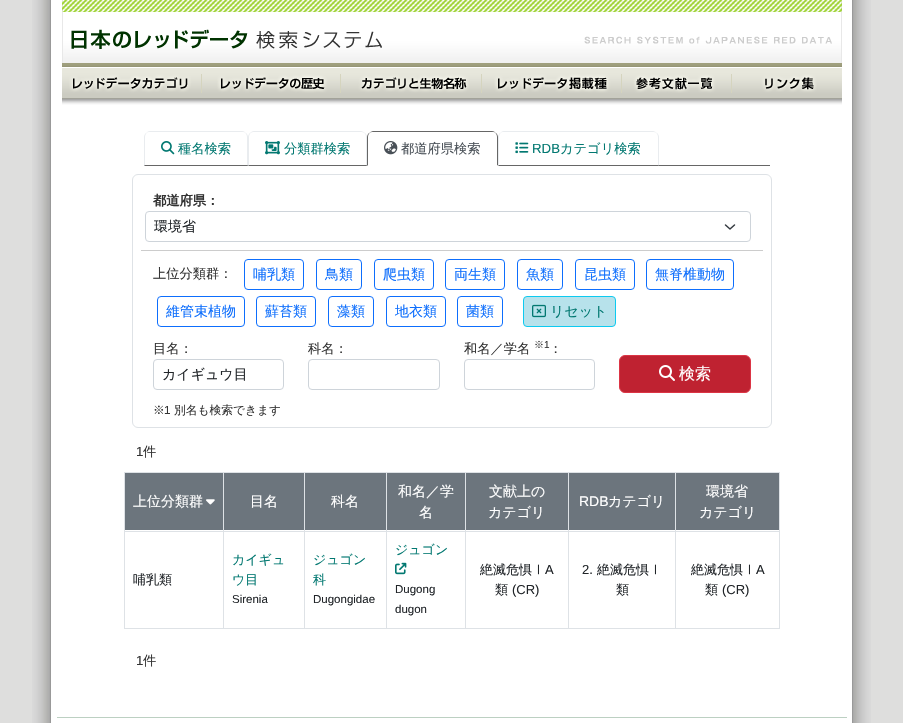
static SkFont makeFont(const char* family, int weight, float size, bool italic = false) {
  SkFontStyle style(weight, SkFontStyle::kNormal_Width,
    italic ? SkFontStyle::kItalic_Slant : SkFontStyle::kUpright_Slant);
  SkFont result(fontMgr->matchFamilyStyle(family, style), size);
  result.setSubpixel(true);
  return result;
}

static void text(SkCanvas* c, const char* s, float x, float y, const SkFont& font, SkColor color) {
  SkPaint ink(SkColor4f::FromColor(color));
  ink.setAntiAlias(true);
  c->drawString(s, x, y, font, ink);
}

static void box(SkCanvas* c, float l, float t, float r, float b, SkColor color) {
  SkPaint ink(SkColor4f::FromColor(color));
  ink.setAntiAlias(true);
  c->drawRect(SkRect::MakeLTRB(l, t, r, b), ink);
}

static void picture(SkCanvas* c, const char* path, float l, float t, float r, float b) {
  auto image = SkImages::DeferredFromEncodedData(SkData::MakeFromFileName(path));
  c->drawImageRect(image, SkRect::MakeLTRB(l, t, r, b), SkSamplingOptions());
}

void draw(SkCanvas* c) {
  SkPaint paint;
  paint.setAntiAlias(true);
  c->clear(0xffdededd);
  picture(c, "img_01.png", 32, 0, 871, 723);
  picture(c, "img_02.png", 62, 0, 482, 67);
  picture(c, "img_03.png", 482, 0, 842, 67);
  picture(c, "img_04.png", 62, 68, 202, 105);
  picture(c, "img_05.png", 202, 68, 342, 105);
  picture(c, "img_06.png", 342, 68, 482, 105);
  picture(c, "img_07.png", 482, 68, 622, 105);
  picture(c, "img_08.png", 622, 68, 732, 105);
  picture(c, "img_09.png", 732, 68, 842, 105);
  box(c, 144, 165, 770, 166, 0xff666666);
  paint.setColor(0xffe9ecef);
  c->drawPath(SkPathBuilder().moveTo(150, 131).cubicTo(148, 131, 147, 132, 146, 133).cubicTo(147, 132, 148, 132, 150, 132).lineTo(242, 132).cubicTo(244, 132, 245, 132, 246, 133).cubicTo(245, 132, 244, 131, 242, 131).close().detach(), paint);
  c->drawPath(SkPathBuilder().moveTo(248, 166).lineTo(248, 137).cubicTo(248, 135.5f, 247, 134, 246, 133).lineTo(245.5f, 133.5f).cubicTo(246.5f, 134, 247, 135.5f, 247, 137).lineTo(247, 165).close().detach(), paint);
  paint.setColor(0xff666666);
  c->drawPath(SkPathBuilder().moveTo(248, 166).lineTo(247, 165).lineTo(145, 165).lineTo(144, 166).close().detach(), paint);
  paint.setColor(0xffe9ecef);
  c->drawPath(SkPathBuilder().moveTo(144, 166).lineTo(145, 165).lineTo(145, 137).cubicTo(145, 135.5f, 145.5f, 134, 146.5f, 133.5f).lineTo(146, 133).cubicTo(145, 134, 144, 135.5f, 144, 137).close().detach(), paint);
  picture(c, "img_10.png", 161, 141, 175, 155);
  SkFont face1 = makeFont("WenQuanYi Zen Hei", 500, 13.25f);
  text(c, "種名検索", 178, 153, face1, 0xff027871);
  c->drawPath(SkPathBuilder().moveTo(254, 131).cubicTo(252, 131, 251, 132, 250, 133).lineTo(253, 132).lineTo(362, 132).lineTo(365, 133).cubicTo(364, 132, 362, 131, 361, 131).close().detach(), paint);
  c->drawPath(SkPathBuilder().moveTo(367, 166).lineTo(367, 137).cubicTo(367, 135.5f, 366, 134, 365, 133).lineTo(364.5f, 133.5f).cubicTo(365.5f, 134, 366, 135.5f, 366, 137).lineTo(366, 165).close().detach(), paint);
  paint.setColor(0xff666666);
  c->drawPath(SkPathBuilder().moveTo(367, 166).lineTo(366, 165).lineTo(249, 165).lineTo(248, 166).close().detach(), paint);
  paint.setColor(0xffe9ecef);
  c->drawPath(SkPathBuilder().moveTo(248, 166).lineTo(249, 165).lineTo(249, 137).cubicTo(249, 135.5f, 249.5f, 134, 250.5f, 133.5f).lineTo(250, 133).cubicTo(249, 134, 248, 135.5f, 248, 137).close().detach(), paint);
  picture(c, "img_11.png", 265, 141, 280, 155);
  text(c, "分類群検索", 284, 153, face1, 0xff027871);
  paint.setColor(0xffffffff);
  c->drawPath(SkPathBuilder().moveTo(373, 131).lineTo(492, 131).cubicTo(495.5f, 131, 498, 133.5f, 498, 137).lineTo(498, 166).lineTo(367, 166).lineTo(367, 137).cubicTo(367, 133.5f, 369.5f, 131, 373, 131).close().detach(), paint);
  paint.setColor(0xff666666);
  c->drawPath(SkPathBuilder().moveTo(373, 131).cubicTo(372, 131, 370, 132, 369, 133).cubicTo(370, 132, 372, 132, 373, 132).lineTo(492, 132).cubicTo(494, 132, 495, 132, 496, 133).cubicTo(495, 132, 494, 131, 492, 131).close().detach(), paint);
  c->drawPath(SkPathBuilder().moveTo(498, 166).lineTo(498, 137).cubicTo(498, 135.5f, 497, 134, 496, 133).lineTo(495.5f, 133.5f).cubicTo(496.5f, 134, 497, 135.5f, 497, 137).lineTo(497, 165).close().detach(), paint);
  paint.setColor(0xffffffff);
  c->drawPath(SkPathBuilder().moveTo(498, 166).lineTo(497, 165).lineTo(368, 165).lineTo(367, 166).close().detach(), paint);
  paint.setColor(0xff666666);
  c->drawPath(SkPathBuilder().moveTo(367, 166).lineTo(368, 165).lineTo(368, 137).cubicTo(368, 135.5f, 368.5f, 134, 369.5f, 133.5f).lineTo(369, 133).cubicTo(368, 134, 367, 135.5f, 367, 137).close().detach(), paint);
  picture(c, "img_12.png", 384, 141, 398, 155);
  text(c, "都道府県検索", 401, 153, face1, 0xff495057);
  paint.setColor(0xffe9ecef);
  c->drawPath(SkPathBuilder().moveTo(504, 131).cubicTo(502, 131, 501, 132, 500, 133).cubicTo(501, 132, 502, 132, 504, 132).lineTo(653, 132).cubicTo(654, 132, 656, 132, 657, 133).cubicTo(656, 132, 654, 131, 653, 131).close().detach(), paint);
  c->drawPath(SkPathBuilder().moveTo(659, 166).lineTo(659, 137).cubicTo(659, 135.5f, 658, 134, 657, 133).lineTo(656.5f, 133.5f).cubicTo(657.5f, 134, 658, 135.5f, 658, 137).lineTo(658, 165).close().detach(), paint);
  paint.setColor(0xff666666);
  c->drawPath(SkPathBuilder().moveTo(659, 166).lineTo(658, 165).lineTo(499, 165).lineTo(498, 166).close().detach(), paint);
  paint.setColor(0xffe9ecef);
  c->drawPath(SkPathBuilder().moveTo(498, 166).lineTo(499, 165).lineTo(499, 137).cubicTo(499, 135.5f, 499.5f, 134, 500.5f, 133.5f).lineTo(500, 133).cubicTo(499, 134, 498, 135.5f, 498, 137).close().detach(), paint);
  picture(c, "img_13.png", 515, 142, 529, 154);
  SkFont face2 = makeFont("Liberation Sans", 400, 13.25f);
  text(c, "RDB", 532, 153, face2, 0xff027871);
  text(c, "カテゴリ検索", 560, 153, face1, 0xff027871);
  paint.setStyle(SkPaint::kStroke_Style);
  paint.setStrokeWidth(1);
  paint.setColor(0xffdee2e6);
  c->drawRoundRect(SkRect::MakeLTRB(132.5f, 174.5f, 771.5f, 427.5f), 5.5f, 5.5f, paint);
  SkFont face3 = makeFont("WenQuanYi Zen Hei", 700, 13.25f);
  text(c, "都道府県：", 153, 205, face3, 0xff333333);
  paint.setStrokeWidth(1.5f);
  paint.setStrokeCap(SkPaint::kRound_Cap);
  paint.setStrokeJoin(SkPaint::kRound_Join);
  paint.setColor(0xff343a40);
  c->drawPath(SkPathBuilder().moveTo(725.5f, 225).lineTo(730, 229).lineTo(734.5f, 225).detach(), paint);
  paint.setStrokeWidth(1);
  paint.setStrokeCap(SkPaint::kButt_Cap);
  paint.setStrokeJoin(SkPaint::kMiter_Join);
  paint.setColor(0xffced4da);
  c->drawRoundRect(SkRect::MakeLTRB(145.5f, 211.5f, 750.5f, 241.5f), 3.5f, 3.5f, paint);
  c->save();
  c->clipRect(SkRect::MakeLTRB(154, 216, 714, 237));
  SkFont face4 = makeFont("WenQuanYi Zen Hei", 500, 14);
  text(c, "環境省", 154, 231, face4, 0xff212529);
  c->restore();
  box(c, 141, 250, 763, 251, 0xffcccccc);
  text(c, "上位分類群：", 153, 278, face1, 0xff333333);
  paint.setColor(0xff0d6efd);
  c->drawRoundRect(SkRect::MakeLTRB(244.5f, 259.5f, 303.5f, 289.5f), 3.5f, 3.5f, paint);
  text(c, "哺乳類", 253, 279, face4, 0xff0d6efd);
  c->drawRoundRect(SkRect::MakeLTRB(316.5f, 259.5f, 361.5f, 289.5f), 3.5f, 3.5f, paint);
  text(c, "鳥類", 325, 279, face4, 0xff0d6efd);
  c->drawRoundRect(SkRect::MakeLTRB(374.5f, 259.5f, 433.5f, 289.5f), 3.5f, 3.5f, paint);
  text(c, "爬虫類", 383, 279, face4, 0xff0d6efd);
  c->drawRoundRect(SkRect::MakeLTRB(445.5f, 259.5f, 504.5f, 289.5f), 3.5f, 3.5f, paint);
  text(c, "両生類", 454, 279, face4, 0xff0d6efd);
  c->drawRoundRect(SkRect::MakeLTRB(517.5f, 259.5f, 562.5f, 289.5f), 3.5f, 3.5f, paint);
  text(c, "魚類", 526, 279, face4, 0xff0d6efd);
  c->drawRoundRect(SkRect::MakeLTRB(575.5f, 259.5f, 634.5f, 289.5f), 3.5f, 3.5f, paint);
  text(c, "昆虫類", 584, 279, face4, 0xff0d6efd);
  c->drawRoundRect(SkRect::MakeLTRB(646.5f, 259.5f, 733.5f, 289.5f), 3.5f, 3.5f, paint);
  text(c, "無脊椎動物", 655, 279, face4, 0xff0d6efd);
  c->drawRoundRect(SkRect::MakeLTRB(157.5f, 296.5f, 244.5f, 326.5f), 3.5f, 3.5f, paint);
  text(c, "維管束植物", 166, 316, face4, 0xff0d6efd);
  c->drawRoundRect(SkRect::MakeLTRB(256.5f, 296.5f, 315.5f, 326.5f), 3.5f, 3.5f, paint);
  text(c, "蘚苔類", 265, 316, face4, 0xff0d6efd);
  c->drawRoundRect(SkRect::MakeLTRB(328.5f, 296.5f, 373.5f, 326.5f), 3.5f, 3.5f, paint);
  text(c, "藻類", 337, 316, face4, 0xff0d6efd);
  c->drawRoundRect(SkRect::MakeLTRB(386.5f, 296.5f, 445.5f, 326.5f), 3.5f, 3.5f, paint);
  text(c, "地衣類", 395, 316, face4, 0xff0d6efd);
  c->drawRoundRect(SkRect::MakeLTRB(457.5f, 296.5f, 502.5f, 326.5f), 3.5f, 3.5f, paint);
  text(c, "菌類", 466, 316, face4, 0xff0d6efd);
  paint.setStyle(SkPaint::kFill_Style);
  paint.setColor(0xffb7e2eb);
  c->drawRoundRect(SkRect::MakeLTRB(523.5f, 296.5f, 615.5f, 326.5f), 3.5f, 3.5f, paint);
  paint.setStyle(SkPaint::kStroke_Style);
  paint.setColor(0xff0dcaf0);
  c->drawRoundRect(SkRect::MakeLTRB(523.5f, 296.5f, 615.5f, 326.5f), 3.5f, 3.5f, paint);
  picture(c, "img_14.png", 532, 304, 546, 318);
  text(c, "リセット", 550, 316, face4, 0xff027871);
  text(c, "目名：", 153, 353, face1, 0xff333333);
  paint.setColor(0xffced4da);
  c->drawRoundRect(SkRect::MakeLTRB(153.5f, 359.5f, 283.5f, 389.5f), 3.5f, 3.5f, paint);
  text(c, "カイギュウ目", 162, 379, face4, 0xff212529);
  text(c, "科名：", 308, 353, face1, 0xff333333);
  c->drawRoundRect(SkRect::MakeLTRB(308.5f, 359.5f, 439.5f, 389.5f), 3.5f, 3.5f, paint);
  text(c, "和名／学名", 464, 353, face1, 0xff333333);
  SkFont face5 = makeFont("WenQuanYi Zen Hei", 500, 10);
  text(c, "※", 534, 348, face5, 0xff333333);
  SkFont face6 = makeFont("Liberation Sans", 400, 10);
  text(c, "1", 544, 348, face6, 0xff333333);
  text(c, "：", 549, 353, face1, 0xff333333);
  c->drawRoundRect(SkRect::MakeLTRB(464.5f, 359.5f, 594.5f, 389.5f), 3.5f, 3.5f, paint);
  paint.setStyle(SkPaint::kFill_Style);
  paint.setColor(0xffbf2231);
  c->drawRoundRect(SkRect::MakeLTRB(619.5f, 355.5f, 750.5f, 392.5f), 5.5f, 5.5f, paint);
  paint.setStyle(SkPaint::kStroke_Style);
  paint.setColor(0xffdc3545);
  c->drawRoundRect(SkRect::MakeLTRB(619.5f, 355.5f, 750.5f, 392.5f), 5.5f, 5.5f, paint);
  picture(c, "img_15.png", 659, 365, 675, 381);
  SkFont face7 = makeFont("WenQuanYi Zen Hei", 500, 16);
  text(c, "検索", 679, 379, face7, 0xffffffff);
  SkFont face8 = makeFont("WenQuanYi Zen Hei", 500, 11.75f);
  text(c, "※", 153, 414, face8, 0xff333333);
  SkFont face9 = makeFont("Liberation Sans", 400, 11.75f);
  text(c, "1", 164, 414, face9, 0xff333333);
  text(c, "別名も検索できます", 174, 414, face8, 0xff333333);
  text(c, "1", 136, 456, face2, 0xff333333);
  text(c, "件", 143, 456, face1, 0xff333333);
  box(c, 125, 473, 779, 530, 0xff6c757d);
  box(c, 124, 472, 780, 473, 0xffdee2e6);
  text(c, "上位分類群", 133, 506, face4, 0xffffffff);
  picture(c, "img_16.png", 206, 499, 215, 505);
  text(c, "目名", 250, 506, face4, 0xffffffff);
  text(c, "科名", 331, 506, face4, 0xffffffff);
  text(c, "和名／学", 398, 496, face4, 0xffffffff);
  text(c, "名", 419, 517, face4, 0xffffffff);
  text(c, "文献上の", 489, 496, face4, 0xffffffff);
  text(c, "カテゴリ", 488, 517, face4, 0xffffffff);
  SkFont face10 = makeFont("Liberation Sans", 400, 14);
  text(c, "RDB", 579, 506, face10, 0xffffffff);
  text(c, "カテゴリ", 608, 506, face4, 0xffffffff);
  text(c, "環境省", 706, 496, face4, 0xffffffff);
  text(c, "カテゴリ", 699, 517, face4, 0xffffffff);
  box(c, 124, 531, 780, 532, 0xffdee2e6);
  box(c, 124, 628, 780, 629, 0xffdee2e6);
  box(c, 124, 472, 125, 629, 0xffdee2e6);
  SkFont face11 = makeFont("WenQuanYi Zen Hei", 500, 13);
  text(c, "哺乳類", 133, 584, face11, 0xff212529);
  box(c, 223, 472, 224, 629, 0xffdee2e6);
  text(c, "カイギュ", 232, 564, face11, 0xff027871);
  text(c, "ウ目", 232, 584, face11, 0xff027871);
  SkFont face12 = makeFont("Liberation Sans", 400, 11.5f);
  text(c, "Sirenia", 232, 603, face12, 0xff212529);
  box(c, 304, 472, 305, 629, 0xffdee2e6);
  text(c, "ジュゴン", 313, 564, face11, 0xff027871);
  text(c, "科", 313, 584, face11, 0xff027871);
  text(c, "Dugongidae", 313, 603, face12, 0xff212529);
  box(c, 386, 472, 387, 629, 0xffdee2e6);
  text(c, "ジュゴン", 395, 554, face11, 0xff027871);
  picture(c, "img_17.png", 395, 562, 407, 575);
  text(c, "Dugong", 395, 593, face12, 0xff212529);
  text(c, "dugon", 395, 613, face12, 0xff212529);
  box(c, 465, 472, 466, 629, 0xffdee2e6);
  text(c, "絶滅危惧Ⅰ", 480, 574, face11, 0xff212529);
  SkFont face13 = makeFont("Liberation Sans", 400, 13);
  text(c, "A", 545, 574, face13, 0xff212529);
  text(c, "類", 495, 594, face11, 0xff212529);
  text(c, "(CR)", 512, 594, face13, 0xff212529);
  box(c, 568, 472, 569, 629, 0xffdee2e6);
  text(c, "2.", 582, 574, face13, 0xff212529);
  text(c, "絶滅危惧Ⅰ", 597, 574, face11, 0xff212529);
  text(c, "類", 616, 594, face11, 0xff212529);
  box(c, 779, 472, 780, 629, 0xffdee2e6);
  box(c, 675, 472, 676, 629, 0xffdee2e6);
  text(c, "絶滅危惧Ⅰ", 691, 574, face11, 0xff212529);
  text(c, "A", 756, 574, face13, 0xff212529);
  text(c, "類", 705, 594, face11, 0xff212529);
  text(c, "(CR)", 722, 594, face13, 0xff212529);
  text(c, "1", 136, 665, face2, 0xff333333);
  text(c, "件", 143, 665, face1, 0xff333333);
  box(c, 57, 717, 847, 718, 0xffbcd0c2);
}
